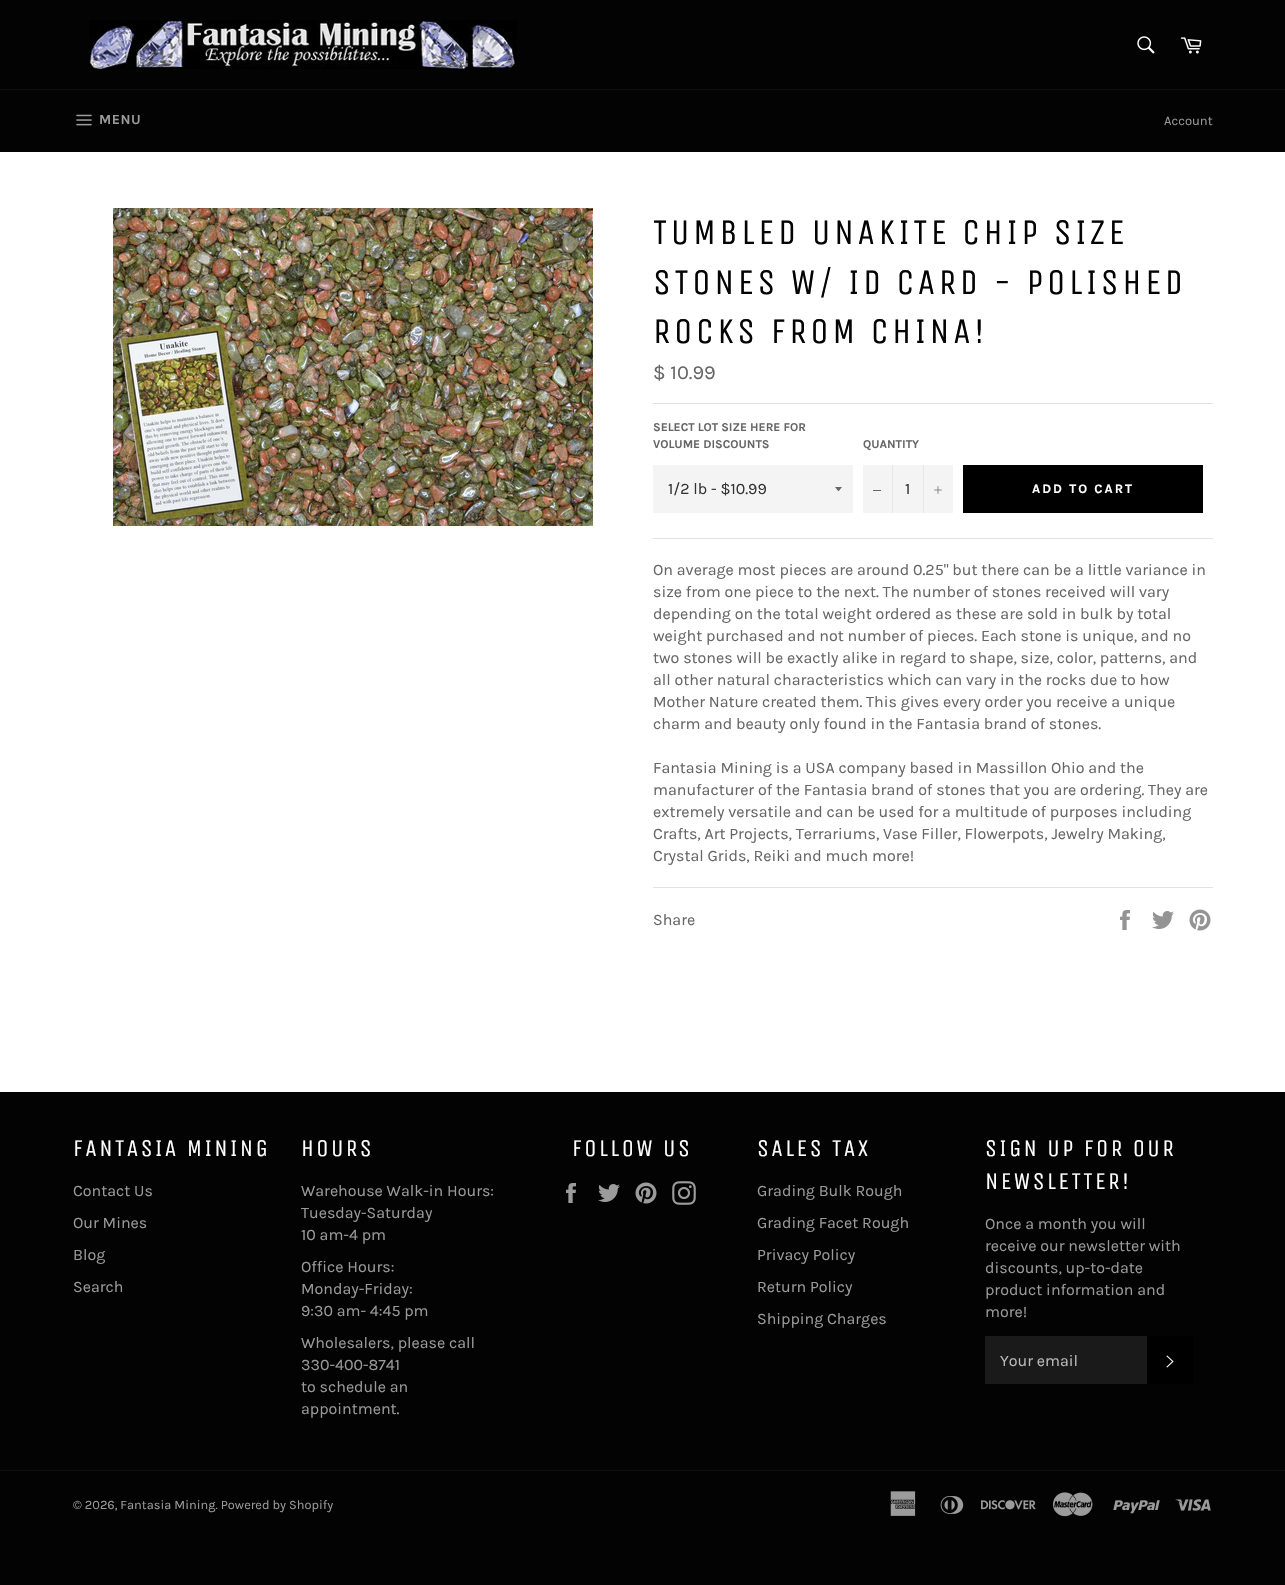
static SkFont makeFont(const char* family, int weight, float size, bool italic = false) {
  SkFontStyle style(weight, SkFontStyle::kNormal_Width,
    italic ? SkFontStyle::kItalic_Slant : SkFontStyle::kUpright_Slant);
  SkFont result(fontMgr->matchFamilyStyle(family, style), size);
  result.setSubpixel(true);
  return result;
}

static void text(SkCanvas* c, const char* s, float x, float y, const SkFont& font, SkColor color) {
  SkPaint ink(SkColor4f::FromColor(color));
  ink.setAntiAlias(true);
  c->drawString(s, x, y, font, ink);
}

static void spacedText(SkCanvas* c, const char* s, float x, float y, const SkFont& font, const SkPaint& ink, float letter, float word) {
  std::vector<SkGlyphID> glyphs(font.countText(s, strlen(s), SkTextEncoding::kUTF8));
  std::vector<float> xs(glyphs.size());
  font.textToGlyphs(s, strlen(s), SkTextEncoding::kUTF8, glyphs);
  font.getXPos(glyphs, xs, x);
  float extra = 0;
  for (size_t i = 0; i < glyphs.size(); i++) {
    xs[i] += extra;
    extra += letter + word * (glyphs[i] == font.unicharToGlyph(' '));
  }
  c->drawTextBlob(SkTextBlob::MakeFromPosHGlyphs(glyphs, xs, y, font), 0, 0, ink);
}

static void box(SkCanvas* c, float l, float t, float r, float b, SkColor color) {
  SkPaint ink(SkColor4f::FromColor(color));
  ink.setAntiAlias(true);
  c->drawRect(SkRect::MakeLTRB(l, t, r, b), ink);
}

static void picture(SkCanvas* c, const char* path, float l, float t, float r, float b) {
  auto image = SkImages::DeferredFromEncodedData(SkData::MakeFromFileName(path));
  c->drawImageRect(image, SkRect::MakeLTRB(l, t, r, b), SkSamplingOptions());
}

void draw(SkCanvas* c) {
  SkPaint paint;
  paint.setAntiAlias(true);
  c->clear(0xff030303);
  picture(c, "img_01.png", 89, 20, 517, 69);
  picture(c, "img_02.png", 1137, 36, 1155, 54);
  picture(c, "img_03.png", 1180, 37, 1202, 54);
  box(c, 0, 89, 1285, 90, 0xff101010);
  picture(c, "img_04.png", 76, 114, 92, 126);
  SkFont face1 = makeFont("Karla", 700, 14);
  paint.setColor(0xff9a9a9a);
  spacedText(c, "MENU", 99, 124, face1, paint, 0.5f, 0);
  SkFont face2 = makeFont("Karla", 400, 13);
  text(c, "Account", 1164, 125, face2, 0xff9a9a9a);
  box(c, 0, 152, 1285, 1092, 0xffffffff);
  picture(c, "img_05.png", 113, 208, 593, 526);
  SkFont face3 = makeFont("Unica One", 400, 36);
  paint.setColor(0xff030303);
  spacedText(c, "TUMBLED UNAKITE CHIP SIZE", 653, 244, face3, paint, 3.6f, 0);
  spacedText(c, "STONES W/ ID CARD - POLISHED", 653, 294, face3, paint, 3.6f, 0);
  spacedText(c, "ROCKS FROM CHINA!", 653, 343, face3, paint, 3.6f, 0);
  SkFont face4 = makeFont("Karla", 400, 20);
  text(c, "$ 10.99", 653, 379, face4, 0xff666666);
  box(c, 653, 403, 1213, 404, 0xffe3e3e3);
  SkFont face5 = makeFont("Karla", 700, 12);
  text(c, "SELECT LOT SIZE HERE FOR", 653, 431, face5, 0xff666666);
  text(c, "VOLUME DISCOUNTS", 653, 448, face5, 0xff666666);
  box(c, 653, 465, 853, 513, 0xfff4f4f4);
  paint.setColor(0xff666666);
  c->drawPath(SkPathBuilder().moveTo(835, 487).cubicTo(839.5f, 492.5f, 837.5f, 492.5f, 842, 487).close().detach(), paint);
  SkFont face6 = makeFont("Karla", 400, 16);
  text(c, "1/2 lb - $10.99", 668, 494, face6, 0xff333333);
  text(c, "QUANTITY", 863, 448, face5, 0xff666666);
  box(c, 863, 465, 953, 513, 0xfff4f4f4);
  box(c, 892, 465, 893, 513, 0xffe7e7e7);
  box(c, 873, 490, 881, 491, 0xff666666);
  text(c, "1", 905, 494, face6, 0xff333333);
  box(c, 923, 465, 924, 513, 0xffe7e7e7);
  picture(c, "img_06.png", 934, 486, 942, 494);
  box(c, 963, 465, 1203, 513, 0xff000000);
  SkFont face7 = makeFont("Karla", 700, 13);
  paint.setColor(0xffffffff);
  spacedText(c, "ADD TO CART", 1032, 493, face7, paint, 2, 0);
  box(c, 653, 538, 1213, 539, 0xffe3e3e3);
  text(c, "On average most pieces are around 0.25\" but there can be a little variance in", 653, 575, face6, 0xff666666);
  text(c, "size from one piece to the next. The number of stones received will vary", 653, 597, face6, 0xff666666);
  text(c, "depending on the total weight ordered as these are sold in bulk by total", 653, 619, face6, 0xff666666);
  text(c, "weight purchased and not number of pieces. Each stone is unique, and no", 653, 641, face6, 0xff666666);
  text(c, "two stones will be exactly alike in regard to shape, size, color, patterns, and", 653, 663, face6, 0xff666666);
  text(c, "all other natural characteristics which can vary in the rocks due to how", 653, 685, face6, 0xff666666);
  text(c, "Mother Nature created them. This gives every order you receive a unique", 653, 707, face6, 0xff666666);
  text(c, "charm and beauty only found in the Fantasia brand of stones.", 653, 729, face6, 0xff666666);
  text(c, "Fantasia Mining is a USA company based in Massillon Ohio and the", 653, 773, face6, 0xff666666);
  text(c, "manufacturer of the Fantasia brand of stones that you are ordering. They are", 653, 795, face6, 0xff666666);
  text(c, "extremely versatile and can be used for a multitude of purposes including", 653, 817, face6, 0xff666666);
  text(c, "Crafts, Art Projects, Terrariums, Vase Filler, Flowerpots, Jewelry Making,", 653, 839, face6, 0xff666666);
  text(c, "Crystal Grids, Reiki and much more!", 653, 861, face6, 0xff666666);
  box(c, 653, 887, 1213, 888, 0xffe3e3e3);
  text(c, "Share", 653, 925, face6, 0xff666666);
  picture(c, "img_07.png", 1120, 910, 1130, 930);
  picture(c, "img_08.png", 1152, 911, 1174, 929);
  picture(c, "img_09.png", 1189, 909, 1211, 931);
  SkFont face8 = makeFont("Unica One", 400, 24);
  spacedText(c, "FANTASIA MINING", 73, 1156, face8, paint, 2.4f, 0);
  text(c, "Contact Us", 73, 1196, face6, 0xff9a9a9a);
  text(c, "Our Mines", 73, 1228, face6, 0xff9a9a9a);
  text(c, "Blog", 73, 1260, face6, 0xff9a9a9a);
  text(c, "Search", 73, 1292, face6, 0xff9a9a9a);
  spacedText(c, "HOURS", 301, 1156, face8, paint, 2.4f, 0);
  text(c, "Warehouse Walk-in Hours:", 301, 1196, face6, 0xff9a9a9a);
  text(c, "Tuesday-Saturday", 301, 1218, face6, 0xff9a9a9a);
  text(c, "10 am-4 pm", 301, 1240, face6, 0xff9a9a9a);
  text(c, "Office Hours:", 301, 1272, face6, 0xff9a9a9a);
  text(c, "Monday-Friday:", 301, 1294, face6, 0xff9a9a9a);
  text(c, "9:30 am- 4:45 pm", 301, 1316, face6, 0xff9a9a9a);
  text(c, "Wholesalers, please call", 301, 1348, face6, 0xff9a9a9a);
  text(c, "330-400-8741", 301, 1370, face6, 0xff9a9a9a);
  text(c, "to schedule an", 301, 1392, face6, 0xff9a9a9a);
  text(c, "appointment.", 301, 1414, face6, 0xff9a9a9a);
  spacedText(c, "FOLLOW US", 572, 1156, face8, paint, 2.4f, 0);
  picture(c, "img_10.png", 566, 1183, 576, 1203);
  picture(c, "img_11.png", 598, 1184, 620, 1202);
  picture(c, "img_12.png", 635, 1182, 657, 1204);
  picture(c, "img_13.png", 672, 1181, 696, 1205);
  spacedText(c, "SALES TAX", 757, 1156, face8, paint, 2.4f, 0);
  text(c, "Grading Bulk Rough", 757, 1196, face6, 0xff9a9a9a);
  text(c, "Grading Facet Rough", 757, 1228, face6, 0xff9a9a9a);
  text(c, "Privacy Policy", 757, 1260, face6, 0xff9a9a9a);
  text(c, "Return Policy", 757, 1292, face6, 0xff9a9a9a);
  text(c, "Shipping Charges", 757, 1324, face6, 0xff9a9a9a);
  spacedText(c, "SIGN UP FOR OUR", 985, 1156, face8, paint, 2.4f, 0);
  spacedText(c, "NEWSLETTER!", 985, 1189, face8, paint, 2.4f, 0);
  text(c, "Once a month you will", 985, 1229, face6, 0xff9a9a9a);
  text(c, "receive our newsletter with", 985, 1251, face6, 0xff9a9a9a);
  text(c, "discounts, up-to-date", 985, 1273, face6, 0xff9a9a9a);
  text(c, "product information and", 985, 1295, face6, 0xff9a9a9a);
  text(c, "more!", 985, 1317, face6, 0xff9a9a9a);
  box(c, 985, 1336, 1147, 1384, 0xff1a1a1a);
  text(c, "Your email", 1000, 1366, face6, 0xffbababa);
  box(c, 1147, 1336, 1193, 1384, 0xff000000);
  picture(c, "img_14.png", 1166, 1355, 1174, 1368);
  box(c, 0, 1470, 1285, 1471, 0xff101010);
  SkFont face9 = makeFont("Karla", 400, 12.8f);
  text(c, "© 2026, Fantasia Mining. Powered by Shopify", 73, 1509, face9, 0xff9a9a9a);
  picture(c, "img_15.png", 890, 1491, 916, 1516);
  picture(c, "img_16.png", 940, 1496, 964, 1514);
  picture(c, "img_17.png", 981, 1500, 1036, 1510);
  picture(c, "img_18.png", 1053, 1492, 1093, 1517);
  picture(c, "img_19.png", 1113, 1500, 1160, 1514);
  picture(c, "img_20.png", 1175, 1499, 1211, 1511);
}
